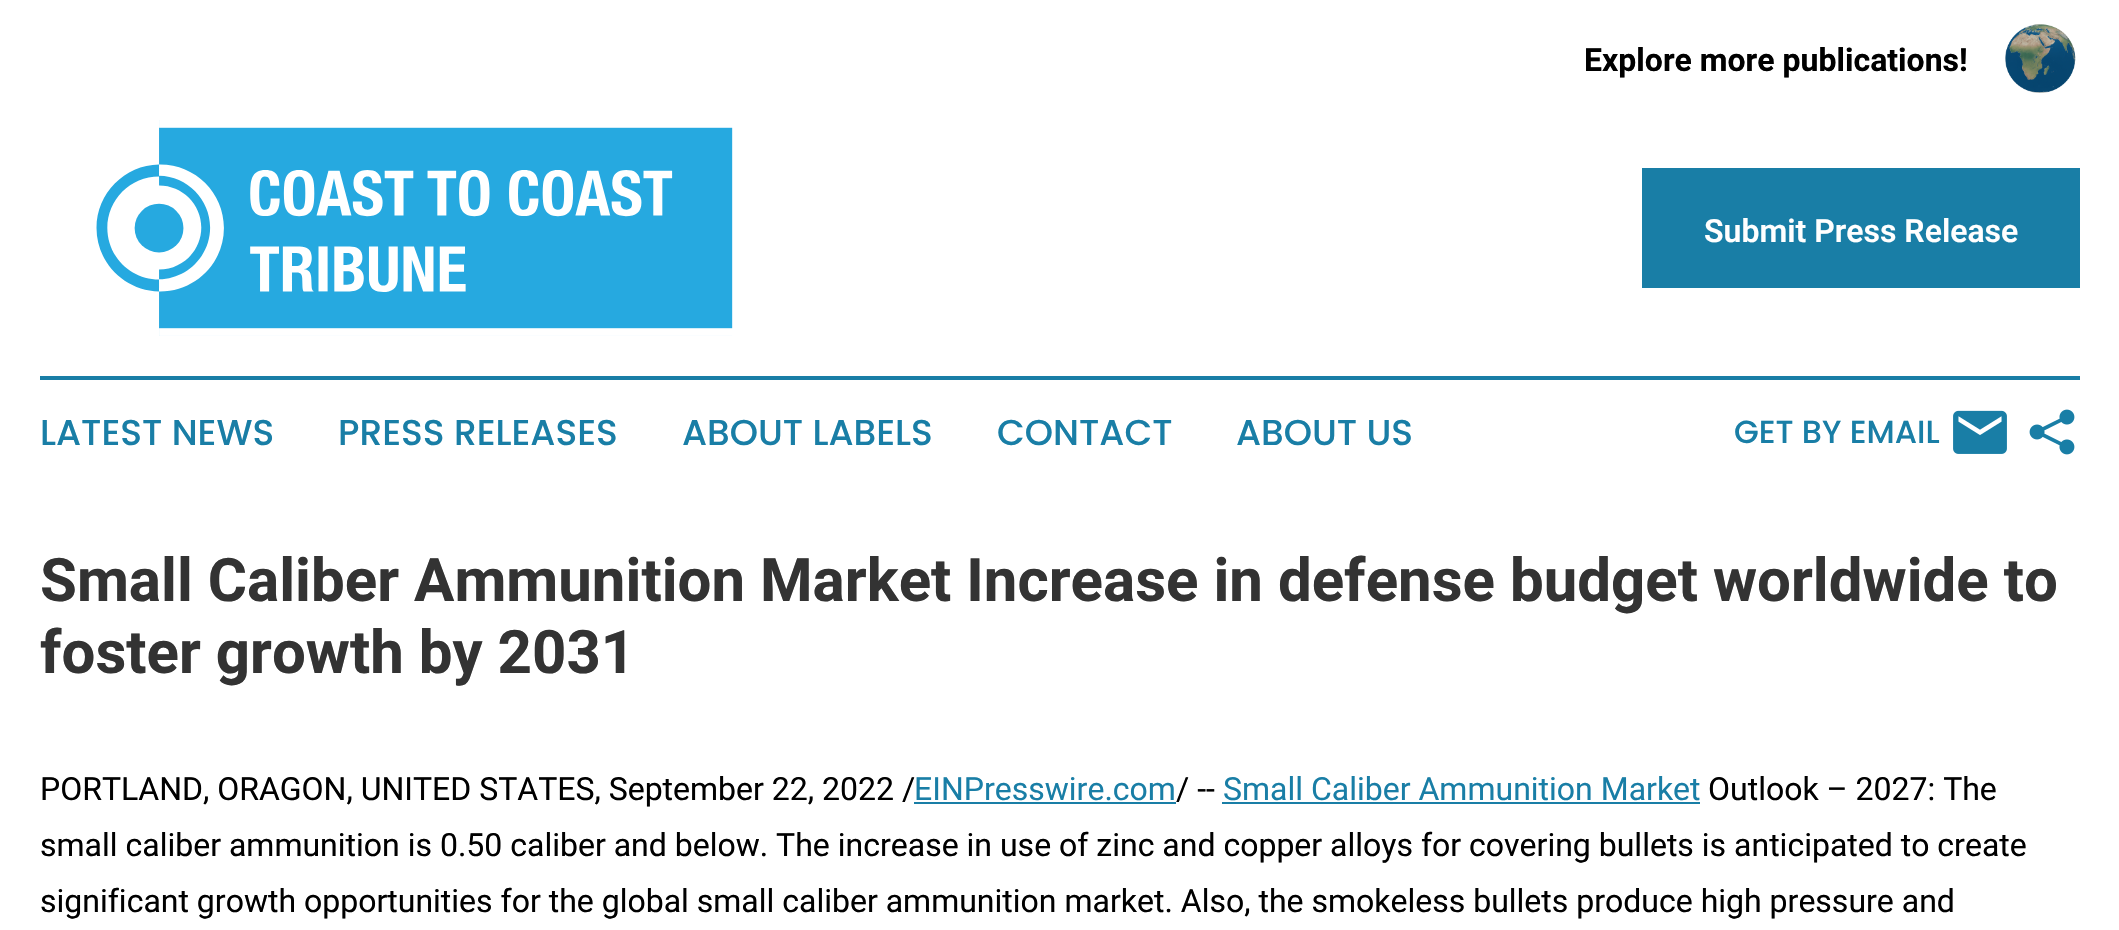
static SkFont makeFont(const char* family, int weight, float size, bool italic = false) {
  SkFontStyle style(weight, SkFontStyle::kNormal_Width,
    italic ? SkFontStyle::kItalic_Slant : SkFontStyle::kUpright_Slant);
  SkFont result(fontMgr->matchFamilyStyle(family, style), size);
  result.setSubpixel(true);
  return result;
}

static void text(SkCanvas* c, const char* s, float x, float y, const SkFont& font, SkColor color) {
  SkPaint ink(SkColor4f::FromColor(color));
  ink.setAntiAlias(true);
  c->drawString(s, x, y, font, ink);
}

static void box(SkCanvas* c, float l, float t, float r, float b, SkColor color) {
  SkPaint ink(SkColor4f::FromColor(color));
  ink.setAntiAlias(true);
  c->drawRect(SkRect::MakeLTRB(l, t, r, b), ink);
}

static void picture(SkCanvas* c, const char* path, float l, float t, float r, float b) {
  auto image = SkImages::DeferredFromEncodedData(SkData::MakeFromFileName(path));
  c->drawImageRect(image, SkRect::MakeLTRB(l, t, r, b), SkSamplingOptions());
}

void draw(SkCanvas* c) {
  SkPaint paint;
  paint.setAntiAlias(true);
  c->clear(0xffffffff);
  SkFont face1 = makeFont("Roboto", 700, 32);
  text(c, "Explore more publications!", 1584, 71, face1, 0xff000000);
  picture(c, "img_01.png", 2005, 24, 2076, 93);
  picture(c, "img_02.png", 96, 120, 733, 336);
  box(c, 1642, 168, 2080, 288, 0xff197ea6);
  SkFont face2 = makeFont("Roboto", 600, 32);
  text(c, "Submit Press Release", 1704, 242, face2, 0xffffffff);
  box(c, 40, 376, 2080, 380, 0xff197ea6);
  SkFont face3 = makeFont("Poppins", 500, 36);
  text(c, "LATEST NEWS", 40, 445, face3, 0xff197ea6);
  text(c, "PRESS RELEASES", 338, 445, face3, 0xff197ea6);
  text(c, "ABOUT LABELS", 682, 445, face3, 0xff197ea6);
  text(c, "CONTACT", 997, 445, face3, 0xff197ea6);
  text(c, "ABOUT US", 1236, 445, face3, 0xff197ea6);
  SkFont face4 = makeFont("Poppins", 500, 32);
  text(c, "GET BY EMAIL", 1734, 443, face4, 0xff197ea6);
  picture(c, "img_03.png", 1953, 410, 2007, 454);
  picture(c, "img_04.png", 2029, 409, 2075, 455);
  SkFont face5 = makeFont("Roboto", 700, 60);
  text(c, "Small Caliber Ammunition Market Increase in defense budget worldwide to", 40, 601, face5, 0xff333333);
  text(c, "foster growth by 2031", 40, 673, face5, 0xff333333);
  SkFont face6 = makeFont("Roboto", 400, 32);
  text(c, "PORTLAND, ORAGON, UNITED STATES, September 22, 2022 /", 40, 800, face6, 0xff000000);
  text(c, "EINPresswire.com", 914, 800, face6, 0xff197ea6);
  box(c, 914, 802, 1176, 804, 0xff197ea6);
  text(c, "/ --", 1176, 800, face6, 0xff000000);
  text(c, "Small Caliber Ammunition Market", 1223, 800, face6, 0xff197ea6);
  box(c, 1222, 802, 1700, 804, 0xff197ea6);
  text(c, "Outlook – 2027: The", 1708, 800, face6, 0xff000000);
  text(c, "small caliber ammunition is 0.50 caliber and below. The increase in use of zinc and copper alloys for covering bullets is anticipated to create", 40, 856, face6, 0xff000000);
  text(c, "significant growth opportunities for the global small caliber ammunition market. Also, the smokeless bullets produce high pressure and", 40, 912, face6, 0xff000000);
}
